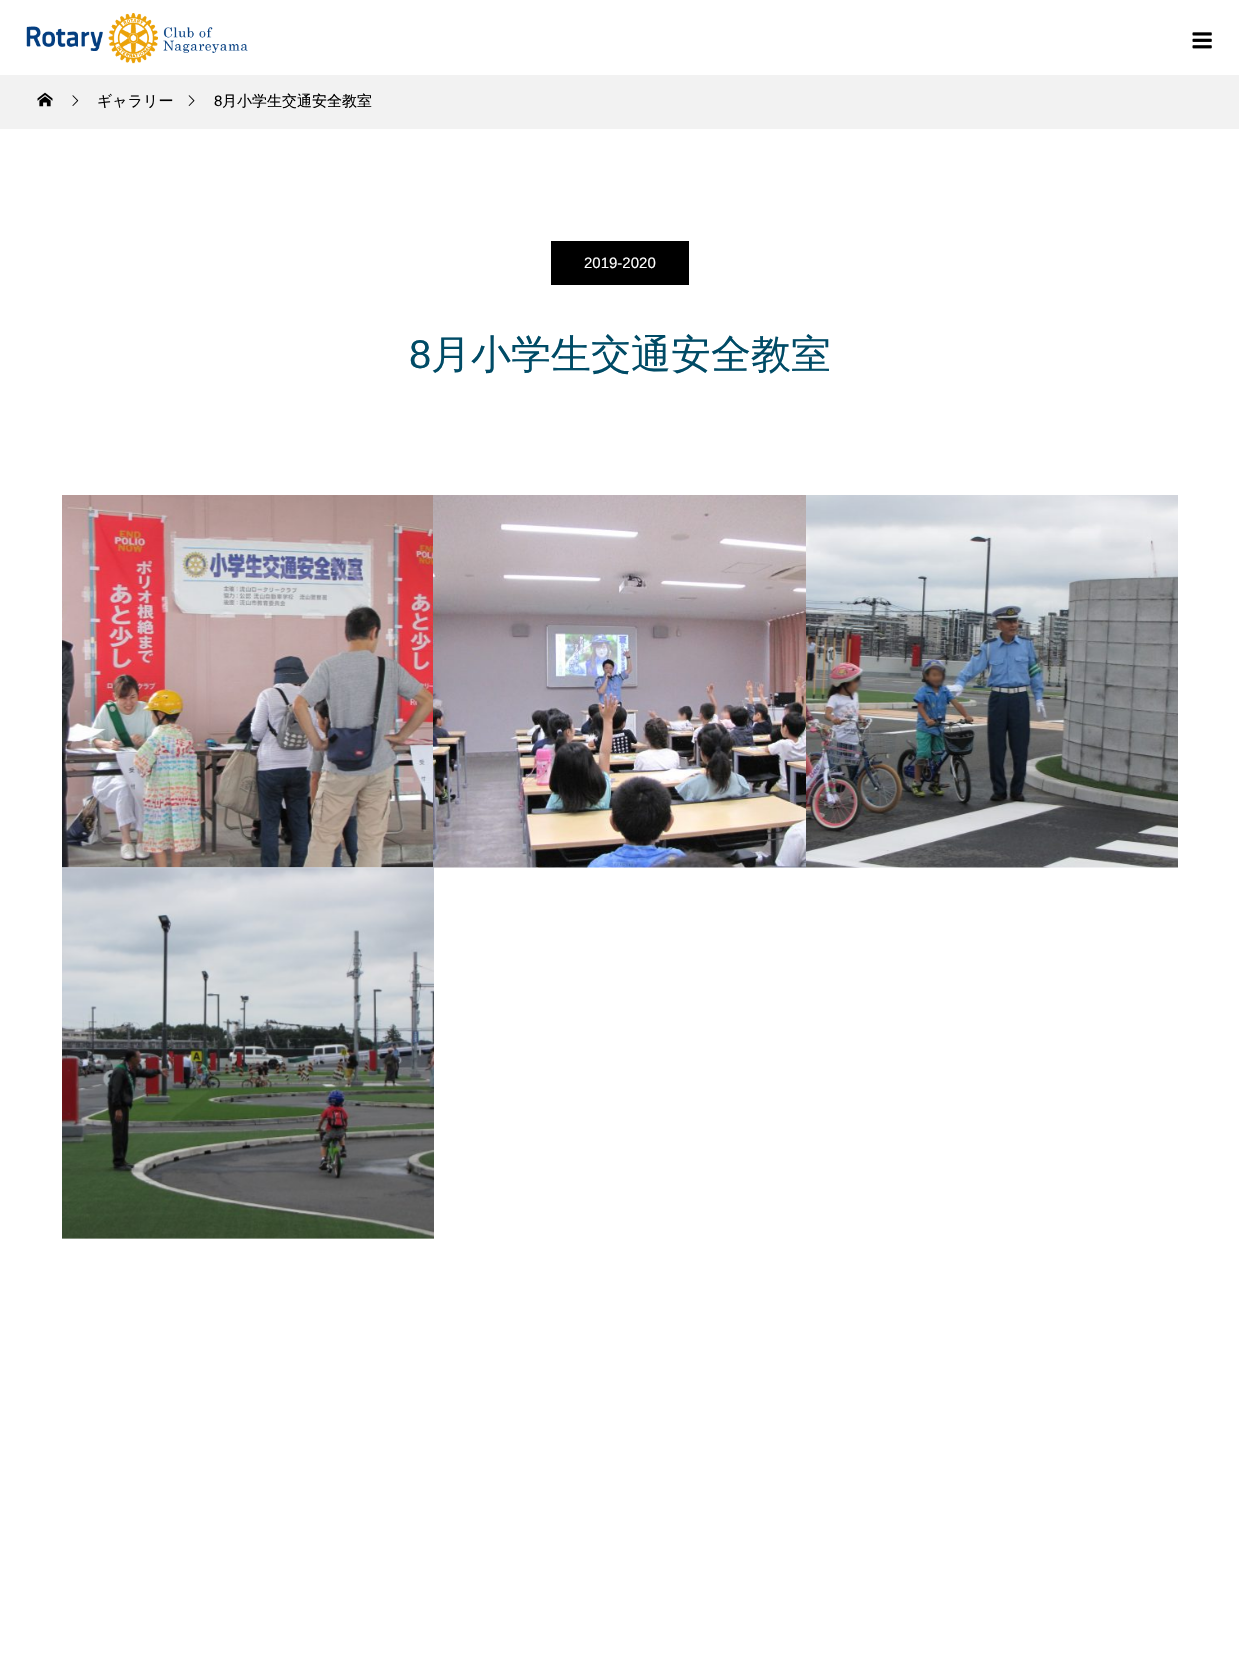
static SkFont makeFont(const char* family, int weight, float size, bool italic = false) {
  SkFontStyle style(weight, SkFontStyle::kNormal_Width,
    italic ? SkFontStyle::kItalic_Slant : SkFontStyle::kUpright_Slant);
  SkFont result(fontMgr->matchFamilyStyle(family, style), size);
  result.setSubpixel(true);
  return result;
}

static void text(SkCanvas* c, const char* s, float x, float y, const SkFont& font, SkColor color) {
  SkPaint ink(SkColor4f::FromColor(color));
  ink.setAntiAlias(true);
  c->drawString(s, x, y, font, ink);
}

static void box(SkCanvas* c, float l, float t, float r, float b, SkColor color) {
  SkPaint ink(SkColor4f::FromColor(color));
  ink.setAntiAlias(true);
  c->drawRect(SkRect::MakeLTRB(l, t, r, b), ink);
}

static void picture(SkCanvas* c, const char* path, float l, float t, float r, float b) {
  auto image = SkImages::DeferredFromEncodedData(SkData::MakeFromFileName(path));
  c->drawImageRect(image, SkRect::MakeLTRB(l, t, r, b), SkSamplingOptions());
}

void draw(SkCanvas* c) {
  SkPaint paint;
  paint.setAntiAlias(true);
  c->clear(0xffffffff);
  picture(c, "img_01.png", 26, 13, 248, 64);
  picture(c, "img_02.png", 1192, 32, 1212, 49);
  box(c, 0, 75, 1239, 129, 0xfff2f2f2);
  picture(c, "img_03.png", 37, 92, 53, 107);
  picture(c, "img_04.png", 72, 95, 79, 106);
  SkFont face1 = makeFont("WenQuanYi Zen Hei", 500, 15);
  text(c, "ギャラリー", 97, 106, face1, 0xff000000);
  picture(c, "img_05.png", 188, 95, 195, 106);
  SkFont face2 = makeFont("Liberation Sans", 400, 15);
  text(c, "8", 214, 106, face2, 0xff000000);
  text(c, "月小学生交通安全教室", 222, 106, face1, 0xff000000);
  box(c, 551, 241, 689, 285, 0xff000000);
  text(c, "2019-2020", 584, 268, face2, 0xffffffff);
  SkFont face3 = makeFont("Liberation Sans", 400, 40);
  text(c, "8", 409, 368, face3, 0xff004b66);
  SkFont face4 = makeFont("WenQuanYi Zen Hei", 500, 40);
  text(c, "月小学生交通安全教室", 431, 368, face4, 0xff004b66);
  picture(c, "img_06.png", 62, 495, 434, 868);
  picture(c, "img_07.png", 433, 495, 806, 868);
  picture(c, "img_08.png", 806, 495, 1178, 868);
  picture(c, "img_09.png", 62, 867, 434, 1239);
}
